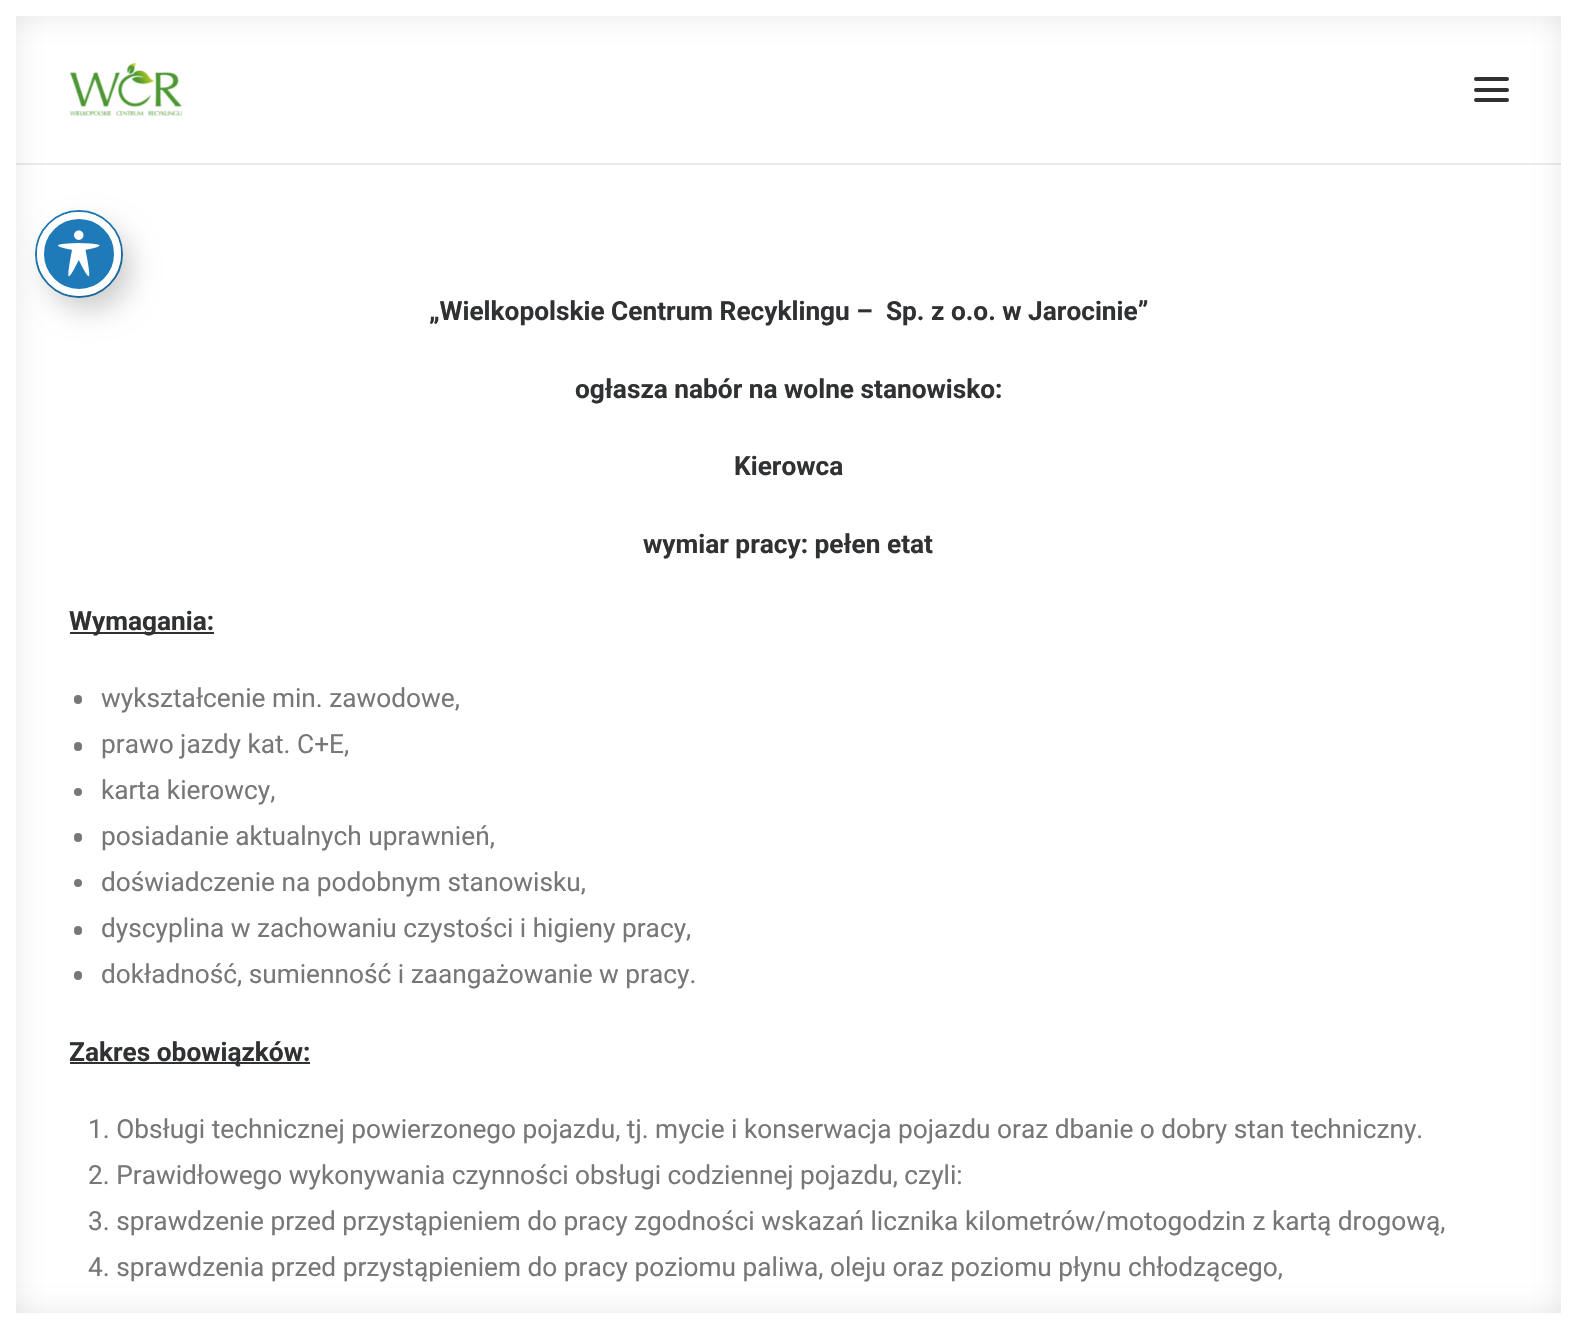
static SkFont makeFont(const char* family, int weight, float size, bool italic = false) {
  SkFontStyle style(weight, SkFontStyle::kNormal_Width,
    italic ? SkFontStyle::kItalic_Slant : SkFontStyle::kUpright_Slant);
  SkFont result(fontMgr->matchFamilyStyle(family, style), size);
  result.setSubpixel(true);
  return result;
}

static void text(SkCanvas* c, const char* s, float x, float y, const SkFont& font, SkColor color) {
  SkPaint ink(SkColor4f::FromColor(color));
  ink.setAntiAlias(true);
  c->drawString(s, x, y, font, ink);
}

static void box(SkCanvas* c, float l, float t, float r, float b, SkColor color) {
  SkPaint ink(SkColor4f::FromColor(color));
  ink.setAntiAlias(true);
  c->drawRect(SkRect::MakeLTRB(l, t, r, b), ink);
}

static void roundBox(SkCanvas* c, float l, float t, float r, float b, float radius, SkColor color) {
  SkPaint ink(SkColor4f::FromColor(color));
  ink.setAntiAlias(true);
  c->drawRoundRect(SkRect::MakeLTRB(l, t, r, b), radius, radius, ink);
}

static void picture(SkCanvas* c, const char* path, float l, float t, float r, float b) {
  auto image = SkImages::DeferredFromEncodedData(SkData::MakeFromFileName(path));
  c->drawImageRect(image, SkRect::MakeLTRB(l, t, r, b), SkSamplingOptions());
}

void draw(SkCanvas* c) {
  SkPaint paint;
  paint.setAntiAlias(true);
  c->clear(0xffffffff);
  paint.setColor(0x1a000000);
  paint.setMaskFilter(SkMaskFilter::MakeBlur(kNormal_SkBlurStyle, 12));
  c->drawRect(SkRect::MakeLTRB(0, 0, 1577, 16), paint);
  paint.setMaskFilter(nullptr);
  paint.setStyle(SkPaint::kStroke_Style);
  paint.setStrokeWidth(2);
  paint.setColor(0xff1e7ab9);
  c->drawCircle(79, 254, 43, paint);
  paint.setStyle(SkPaint::kFill_Style);
  paint.setColor(0x33000000);
  paint.setMaskFilter(SkMaskFilter::MakeBlur(kNormal_SkBlurStyle, 14));
  c->drawRoundRect(SkRect::MakeLTRB(47, 226, 131, 310), 42, 42, paint);
  paint.setMaskFilter(nullptr);
  paint.setColor(0xff1e7ab9);
  c->drawCircle(79, 254, 38.5f, paint);
  paint.setStyle(SkPaint::kStroke_Style);
  paint.setStrokeWidth(7);
  paint.setColor(0xffffffff);
  c->drawCircle(79, 254, 38.5f, paint);
  box(c, 16, 163, 1561, 165, 0xffeaeaea);
  paint.setStyle(SkPaint::kFill_Style);
  paint.setColor(0x1a000000);
  paint.setMaskFilter(SkMaskFilter::MakeBlur(kNormal_SkBlurStyle, 12));
  c->drawRect(SkRect::MakeLTRB(0, 0, 16, 1328), paint);
  paint.setMaskFilter(nullptr);
  paint.setMaskFilter(SkMaskFilter::MakeBlur(kNormal_SkBlurStyle, 12));
  c->drawRect(SkRect::MakeLTRB(0, 1313, 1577, 1328), paint);
  paint.setMaskFilter(nullptr);
  box(c, 0, 0, 16, 1328, 0xffffffff);
  paint.setMaskFilter(SkMaskFilter::MakeBlur(kNormal_SkBlurStyle, 12));
  c->drawRect(SkRect::MakeLTRB(1561, 0, 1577, 1328), paint);
  paint.setMaskFilter(nullptr);
  box(c, 16, 0, 1561, 16, 0xffffffff);
  box(c, 1561, 0, 1576, 1313, 0xffffffff);
  box(c, 16, 1313, 1576, 1328, 0xffffffff);
  picture(c, "img_01.png", 58, 230, 100, 277);
  picture(c, "img_02.png", 69, 63, 182, 116);
  roundBox(c, 1474, 88, 1509, 92, 2, 0xff303133);
  roundBox(c, 1474, 77, 1509, 81, 2, 0xff303133);
  roundBox(c, 1474, 98, 1509, 102, 2, 0xff303133);
  SkFont face1 = makeFont("Roboto", 700, 26.25f);
  text(c, "„Wielkopolskie Centrum Recyklingu –  Sp. z o.o. w Jarocinie”", 429, 320, face1, 0xff303133);
  text(c, "ogłasza nabór na wolne stanowisko:", 575, 398, face1, 0xff303133);
  text(c, "Kierowca", 734, 475, face1, 0xff303133);
  text(c, "wymiar pracy: pełen etat", 643, 553, face1, 0xff303133);
  box(c, 70, 632, 214, 634, 0xff303133);
  text(c, "Wymagania:", 69, 630, face1, 0xff303133);
  roundBox(c, 74, 695, 82, 704, 4, 0xff777777);
  SkFont face2 = makeFont("Roboto", 400, 26.25f);
  text(c, "wykształcenie min. zawodowe,", 101, 707, face2, 0xff777777);
  roundBox(c, 74, 742, 82, 751, 4, 0xff777777);
  text(c, "prawo jazdy kat. C+E,", 101, 753, face2, 0xff777777);
  paint.setColor(0xff777777);
  c->drawCircle(78, 792, 4, paint);
  text(c, "karta kierowcy,", 101, 799, face2, 0xff777777);
  roundBox(c, 74, 833, 82, 842, 4, 0xff777777);
  text(c, "posiadanie aktualnych uprawnień,", 101, 845, face2, 0xff777777);
  c->drawCircle(78, 883, 4, paint);
  text(c, "doświadczenie na podobnym stanowisku,", 101, 891, face2, 0xff777777);
  roundBox(c, 74, 926, 82, 935, 4, 0xff777777);
  text(c, "dyscyplina w zachowaniu czystości i higieny pracy,", 101, 937, face2, 0xff777777);
  roundBox(c, 74, 971, 82, 980, 4, 0xff777777);
  text(c, "dokładność, sumienność i zaangażowanie w pracy.", 101, 983, face2, 0xff777777);
  box(c, 70, 1062, 310, 1064, 0xff303133);
  text(c, "Zakres obowiązków:", 69, 1061, face1, 0xff303133);
  text(c, "1. Obsługi technicznej powierzonego pojazdu, tj. mycie i konserwacja pojazdu oraz dbanie o dobry stan techniczny.", 88, 1138, face2, 0xff777777);
  text(c, "2. Prawidłowego wykonywania czynności obsługi codziennej pojazdu, czyli:", 88, 1184, face2, 0xff777777);
  text(c, "3. sprawdzenie przed przystąpieniem do pracy zgodności wskazań licznika kilometrów/motogodzin z kartą drogową,", 88, 1230, face2, 0xff777777);
  text(c, "4. sprawdzenia przed przystąpieniem do pracy poziomu paliwa, oleju oraz poziomu płynu chłodzącego,", 88, 1276, face2, 0xff777777);
}
